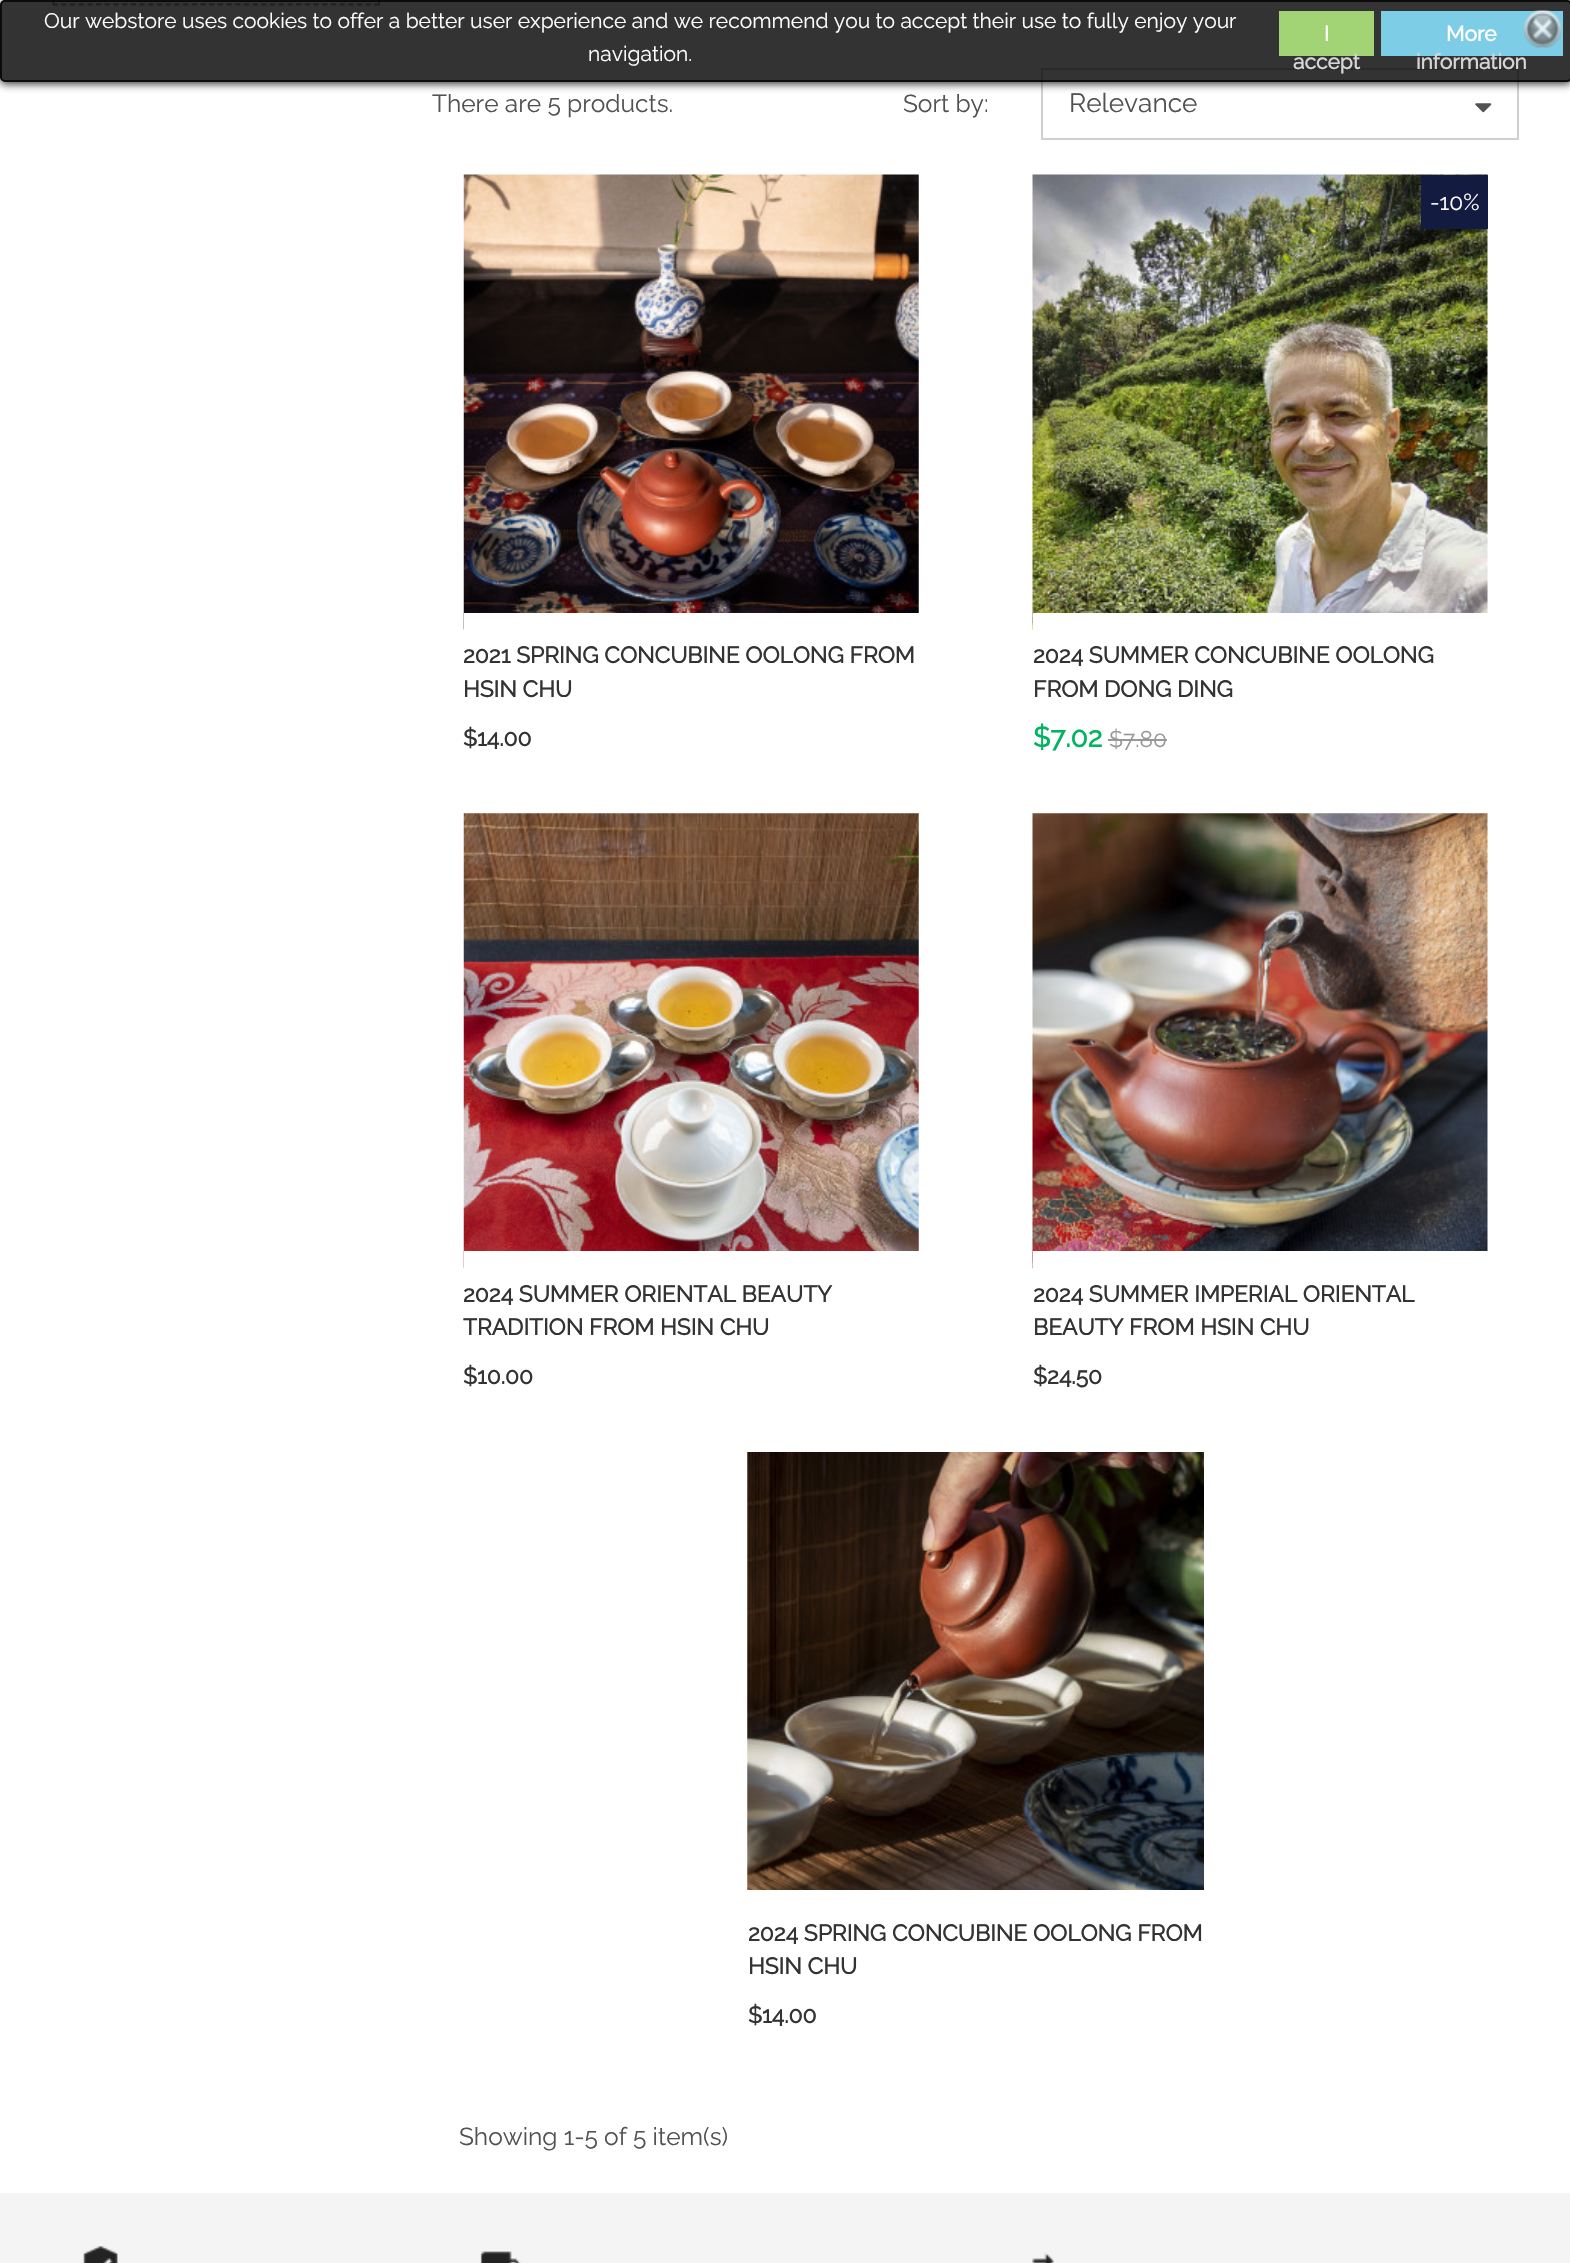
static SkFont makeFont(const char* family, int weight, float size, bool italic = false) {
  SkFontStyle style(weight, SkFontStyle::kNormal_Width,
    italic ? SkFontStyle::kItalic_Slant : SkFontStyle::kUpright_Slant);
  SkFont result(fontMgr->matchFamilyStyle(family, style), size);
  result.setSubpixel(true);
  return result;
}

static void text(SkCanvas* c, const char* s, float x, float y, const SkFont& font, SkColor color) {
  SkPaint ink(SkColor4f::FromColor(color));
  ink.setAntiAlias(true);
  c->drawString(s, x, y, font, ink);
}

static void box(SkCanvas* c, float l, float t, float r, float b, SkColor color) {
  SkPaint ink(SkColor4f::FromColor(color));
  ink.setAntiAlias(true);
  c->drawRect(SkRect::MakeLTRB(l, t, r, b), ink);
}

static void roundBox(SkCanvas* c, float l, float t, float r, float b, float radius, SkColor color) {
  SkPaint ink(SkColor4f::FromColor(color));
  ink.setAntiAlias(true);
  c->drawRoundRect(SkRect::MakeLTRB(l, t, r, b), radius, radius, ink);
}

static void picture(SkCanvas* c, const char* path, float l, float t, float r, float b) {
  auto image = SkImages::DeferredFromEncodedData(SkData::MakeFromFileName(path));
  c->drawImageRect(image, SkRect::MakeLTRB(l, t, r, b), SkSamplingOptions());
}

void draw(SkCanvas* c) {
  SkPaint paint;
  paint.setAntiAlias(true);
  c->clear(0xffffffff);
  paint.setStyle(SkPaint::kStroke_Style);
  paint.setStrokeWidth(1.8f);
  paint.setColor(0xff999898);
  paint.setPathEffect(SkDashPathEffect::Make({{5.25f, 3.71f}}, 0));
  c->drawPath(SkPathBuilder().moveTo(379, -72).lineTo(379, 5).detach(), paint);
  paint.setPathEffect(nullptr);
  paint.setPathEffect(SkDashPathEffect::Make({{5.25f, 3.45f}}, 0));
  c->drawPath(SkPathBuilder().moveTo(52.5f, 4.5f).lineTo(380, 4.5f).detach(), paint);
  paint.setPathEffect(nullptr);
  paint.setPathEffect(SkDashPathEffect::Make({{5.25f, 3.71f}}, 0));
  c->drawPath(SkPathBuilder().moveTo(53.5f, -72).lineTo(53.5f, 5).detach(), paint);
  paint.setPathEffect(nullptr);
  paint.setStrokeWidth(2);
  paint.setColor(0xffcfcfcf);
  c->drawRect(SkRect::MakeLTRB(1042, 69, 1518, 139), paint);
  c->save();
  c->clipPath(SkPathBuilder(SkPathFillType::kEvenOdd).moveTo(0, 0).lineTo(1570, 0).lineTo(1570, 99).lineTo(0, 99).close().moveTo(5, 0).lineTo(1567, 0).cubicTo(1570, 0, 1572, 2, 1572, 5).lineTo(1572, 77).cubicTo(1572, 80, 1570, 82, 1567, 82).lineTo(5, 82).cubicTo(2, 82, 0, 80, 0, 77).lineTo(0, 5).cubicTo(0, 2, 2, 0, 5, 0).close().detach(), true);
  paint.setStyle(SkPaint::kFill_Style);
  paint.setColor(0xcc000000);
  paint.setMaskFilter(SkMaskFilter::MakeBlur(kNormal_SkBlurStyle, 4.5f));
  c->drawRoundRect(SkRect::MakeLTRB(0, 2, 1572, 84), 5, 5, paint);
  paint.setMaskFilter(nullptr);
  c->restore();
  roundBox(c, 0, 0, 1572, 82, 5, 0xcc000000);
  paint.setStyle(SkPaint::kStroke_Style);
  c->drawRoundRect(SkRect::MakeLTRB(1, 1, 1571, 81), 4, 4, paint);
  SkFont face1 = makeFont("Raleway", 100, 21);
  text(c, "Our webstore uses cookies to offer a better user experience and we recommend you to accept their use to fully enjoy your", 44, 28, face1, 0xffffffff);
  text(c, "navigation.", 588, 61, face1, 0xffffffff);
  box(c, 1279, 11, 1374, 56, 0xffa2d476);
  SkFont face2 = makeFont("Raleway", 700, 21);
  text(c, "I", 1324, 41, face2, 0xffffffff);
  text(c, "accept", 1293, 69, face2, 0xffd6d6d6);
  box(c, 1381, 11, 1563, 56, 0xff7ccde5);
  text(c, "More", 1446, 41, face2, 0xffffffff);
  text(c, "information", 1416, 69, face2, 0xffd6d6d6);
  picture(c, "img_01.png", 1524, 10, 1562, 48);
  SkFont face3 = makeFont("Raleway", 100, 24.5f);
  text(c, "There are 5 products.", 432, 112, face3, 0xff535252);
  text(c, "Sort by:", 903, 112, face3, 0xff535252);
  SkFont face4 = makeFont("Raleway", 100, 26.25f);
  text(c, "Relevance", 1069, 112, face4, 0xff535252);
  picture(c, "img_02.png", 1475, 103, 1492, 113);
  picture(c, "img_03.png", 463, 174, 919, 630);
  box(c, 464, 613, 919, 630, 0xffffffff);
  SkFont face5 = makeFont("Raleway", 700, 22.75f);
  text(c, "2021 SPRING CONCUBINE OOLONG FROM", 463, 663, face5, 0xff333333);
  text(c, "HSIN CHU", 463, 697, face5, 0xff333333);
  text(c, "$14.00", 463, 746, face5, 0xff333333);
  picture(c, "img_04.png", 1032, 174, 1488, 630);
  box(c, 1033, 613, 1488, 630, 0xffffffff);
  box(c, 1421, 175, 1488, 229, 0xff141b41);
  SkFont face6 = makeFont("Raleway", 100, 22.75f);
  text(c, "-10%", 1430, 210, face6, 0xffffffff);
  SkFont face7 = makeFont("Raleway", 700, 28);
  text(c, "$7.02", 1033, 747, face7, 0xff00b460);
  text(c, "$7.80", 1109, 747, face6, 0xff999898);
  box(c, 1108, 739, 1167, 741, 0xff999898);
  text(c, "2024 SUMMER CONCUBINE OOLONG", 1033, 663, face5, 0xff333333);
  text(c, "FROM DONG DING", 1033, 697, face5, 0xff333333);
  picture(c, "img_05.png", 463, 813, 919, 1269);
  box(c, 464, 1251, 919, 1269, 0xffffffff);
  text(c, "2024 SUMMER ORIENTAL BEAUTY", 463, 1302, face5, 0xff333333);
  text(c, "TRADITION FROM HSIN CHU", 463, 1335, face5, 0xff333333);
  text(c, "$10.00", 463, 1384, face5, 0xff333333);
  picture(c, "img_06.png", 1032, 813, 1488, 1269);
  box(c, 1033, 1251, 1488, 1269, 0xffffffff);
  text(c, "2024 SUMMER IMPERIAL ORIENTAL", 1033, 1302, face5, 0xff333333);
  text(c, "BEAUTY FROM HSIN CHU", 1033, 1335, face5, 0xff333333);
  text(c, "$24.50", 1033, 1384, face5, 0xff333333);
  picture(c, "img_07.png", 747, 1452, 1204, 1890);
  text(c, "2024 SPRING CONCUBINE OOLONG FROM", 748, 1941, face5, 0xff333333);
  text(c, "HSIN CHU", 748, 1974, face5, 0xff333333);
  text(c, "$14.00", 748, 2023, face5, 0xff333333);
  text(c, "Showing 1-5 of 5 item(s)", 459, 2145, face3, 0xff535252);
  box(c, 0, 2193, 1570, 2263, 0xfff4f4f4);
  picture(c, "img_08.png", 83, 2246, 118, 2263);
  picture(c, "img_09.png", 480, 2251, 521, 2263);
  picture(c, "img_10.png", 1032, 2253, 1054, 2263);
}
